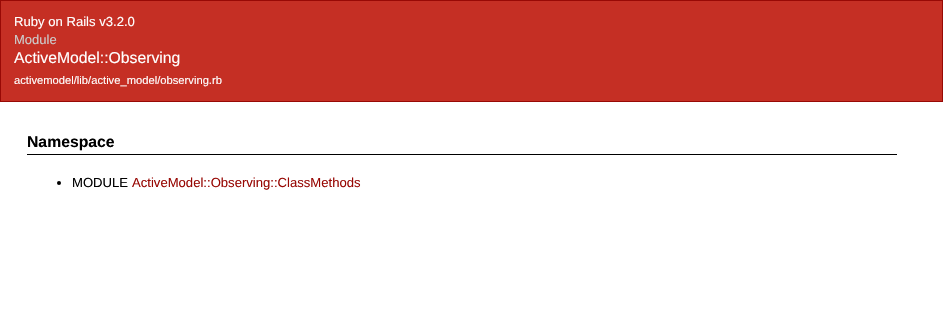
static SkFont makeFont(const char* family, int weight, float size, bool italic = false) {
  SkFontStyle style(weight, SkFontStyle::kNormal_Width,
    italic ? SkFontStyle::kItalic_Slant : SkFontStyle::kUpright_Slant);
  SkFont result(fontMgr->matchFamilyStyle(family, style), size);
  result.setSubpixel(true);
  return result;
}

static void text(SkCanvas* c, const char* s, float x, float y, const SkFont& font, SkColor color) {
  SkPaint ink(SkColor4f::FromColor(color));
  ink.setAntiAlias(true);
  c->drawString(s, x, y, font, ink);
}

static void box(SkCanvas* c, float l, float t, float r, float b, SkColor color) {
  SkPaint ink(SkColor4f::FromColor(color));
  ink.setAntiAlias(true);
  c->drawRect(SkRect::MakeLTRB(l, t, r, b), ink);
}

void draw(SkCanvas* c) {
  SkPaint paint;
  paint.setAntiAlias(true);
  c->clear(0xffffffff);
  paint.setColor(0xffc52f24);
  c->drawRect(SkRect::MakeLTRB(0.5f, 0.5f, 942.5f, 101.5f), paint);
  paint.setStyle(SkPaint::kStroke_Style);
  paint.setStrokeWidth(1);
  paint.setColor(0xff980905);
  c->drawRect(SkRect::MakeLTRB(0.5f, 0.5f, 942.5f, 101.5f), paint);
  SkFont face1 = makeFont("Liberation Sans", 400, 13.1f);
  text(c, "Ruby on Rails v3.2.0", 14, 26, face1, 0xffffffff);
  SkFont face2 = makeFont("Liberation Sans", 400, 13);
  text(c, "Module", 14, 44, face2, 0xffcccccc);
  SkFont face3 = makeFont("Liberation Sans", 400, 15.75f);
  text(c, "ActiveModel::Observing", 14, 63, face3, 0xffffffff);
  SkFont face4 = makeFont("Liberation Sans", 400, 11.2f);
  text(c, "activemodel/lib/active_model/observing.rb", 14, 84, face4, 0xffffffff);
  box(c, 27, 154, 897, 155, 0xff000000);
  SkFont face5 = makeFont("Liberation Sans", 700, 15.75f);
  text(c, "Namespace", 27, 147, face5, 0xff000000);
  paint.setStyle(SkPaint::kFill_Style);
  paint.setColor(0xff000000);
  c->drawCircle(59, 183, 2, paint);
  text(c, "MODULE", 72, 187, face1, 0xff000000);
  text(c, "ActiveModel::Observing::ClassMethods", 132, 187, face1, 0xff980905);
}
